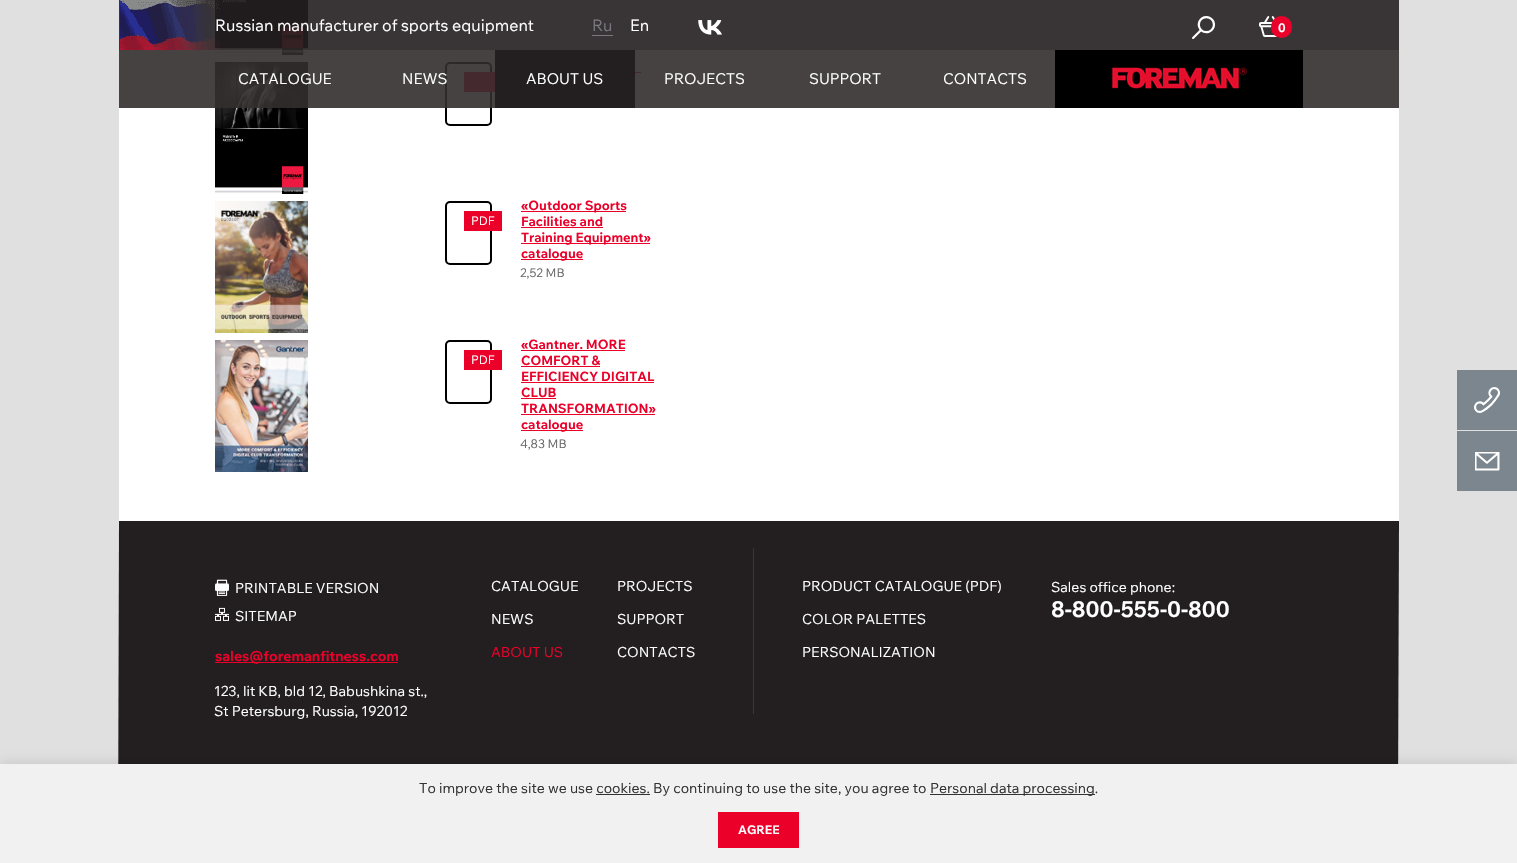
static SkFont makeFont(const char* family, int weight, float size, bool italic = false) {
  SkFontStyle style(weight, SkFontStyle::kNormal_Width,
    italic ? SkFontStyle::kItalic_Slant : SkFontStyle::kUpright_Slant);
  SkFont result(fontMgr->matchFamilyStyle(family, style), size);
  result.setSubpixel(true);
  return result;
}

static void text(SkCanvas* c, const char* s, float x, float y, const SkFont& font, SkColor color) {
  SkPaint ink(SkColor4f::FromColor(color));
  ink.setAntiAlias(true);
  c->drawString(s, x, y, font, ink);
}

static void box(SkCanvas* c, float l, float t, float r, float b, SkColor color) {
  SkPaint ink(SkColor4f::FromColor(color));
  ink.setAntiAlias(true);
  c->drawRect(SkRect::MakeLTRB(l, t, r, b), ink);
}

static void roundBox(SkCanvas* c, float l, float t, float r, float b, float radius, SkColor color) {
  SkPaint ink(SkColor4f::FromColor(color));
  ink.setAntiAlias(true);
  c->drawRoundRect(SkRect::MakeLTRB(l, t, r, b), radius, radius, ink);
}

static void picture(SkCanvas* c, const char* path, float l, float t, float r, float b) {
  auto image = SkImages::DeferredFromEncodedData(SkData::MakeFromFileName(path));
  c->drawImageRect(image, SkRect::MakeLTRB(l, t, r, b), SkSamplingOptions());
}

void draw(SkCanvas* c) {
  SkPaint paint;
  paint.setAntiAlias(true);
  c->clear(0xffe0e0e0);
  box(c, 119, 50, 1399, 764, 0xffffffff);
  box(c, 119, 0, 1399, 50, 0xff393536);
  picture(c, "img_06.png", 215, 0, 308, 55);
  SkFont face1 = makeFont("Wix Madefor Text", 400, 16);
  text(c, "Russian manufacturer of sports equipment", 215, 31, face1, 0xffffffff);
  picture(c, "img_01.png", 120, 0, 220, 50);
  text(c, "Ru", 592, 31, face1, 0xff78787e);
  box(c, 592, 35, 613, 36, 0xff78787e);
  text(c, "En", 630, 31, face1, 0xffffffff);
  picture(c, "img_02.png", 698, 20, 722, 35);
  picture(c, "img_03.png", 1192, 16, 1215, 39);
  picture(c, "img_04.png", 1259, 16, 1277, 37);
  roundBox(c, 1271, 16, 1292, 38, 10.5f, 0xffea0029);
  SkFont face2 = makeFont("Wix Madefor Text", 700, 12);
  text(c, "0", 1278, 32, face2, 0xffffffff);
  picture(c, "img_07.png", 215, 62, 308, 194);
  paint.setStyle(SkPaint::kStroke_Style);
  paint.setStrokeWidth(2);
  paint.setColor(0xff000000);
  c->drawRoundRect(SkRect::MakeLTRB(446, 63, 491, 125), 4, 4, paint);
  box(c, 464, 72, 495, 92, 0xffea0029);
  box(c, 635, 72, 641, 73, 0xffea0029);
  box(c, 119, 50, 1399, 108, 0xe6322d2e);
  SkFont face3 = makeFont("Wix Madefor Text", 400, 15);
  text(c, "CATALOGUE", 238, 84, face3, 0xffffffff);
  text(c, "NEWS", 402, 84, face3, 0xffffffff);
  box(c, 495, 50, 635, 108, 0xff231f20);
  text(c, "ABOUT US", 526, 84, face3, 0xffffffff);
  text(c, "PROJECTS", 664, 84, face3, 0xffffffff);
  text(c, "SUPPORT", 809, 84, face3, 0xffffffff);
  text(c, "CONTACTS", 943, 84, face3, 0xffffffff);
  picture(c, "img_05.png", 1055, 50, 1303, 108);
  picture(c, "img_08.png", 215, 201, 308, 333);
  c->drawRoundRect(SkRect::MakeLTRB(446, 202, 491, 264), 4, 4, paint);
  box(c, 521, 211, 626, 212, 0xffea0029);
  SkFont face4 = makeFont("Wix Madefor Text", 700, 13);
  text(c, "«Outdoor Sports", 521, 210, face4, 0xffea0029);
  text(c, "Facilities and", 521, 226, face4, 0xffea0029);
  box(c, 521, 227, 603, 228, 0xffea0029);
  box(c, 521, 243, 650, 244, 0xffea0029);
  text(c, "Training Equipment»", 521, 242, face4, 0xffea0029);
  box(c, 521, 259, 583, 260, 0xffea0029);
  text(c, "catalogue", 521, 258, face4, 0xffea0029);
  box(c, 464, 211, 502, 231, 0xffea0029);
  SkFont face5 = makeFont("Wix Madefor Text", 400, 12);
  text(c, "PDF", 471, 225, face5, 0xffffffff);
  text(c, "2,52 MB", 520, 277, face5, 0xff666666);
  picture(c, "img_09.png", 215, 340, 308, 472);
  c->drawRoundRect(SkRect::MakeLTRB(446, 341, 491, 403), 4, 4, paint);
  text(c, "«Gantner. MORE", 521, 349, face4, 0xffea0029);
  box(c, 521, 350, 625, 351, 0xffea0029);
  text(c, "COMFORT &", 521, 365, face4, 0xffea0029);
  box(c, 521, 366, 600, 367, 0xffea0029);
  text(c, "EFFICIENCY DIGITAL", 521, 381, face4, 0xffea0029);
  box(c, 521, 382, 654, 383, 0xffea0029);
  text(c, "CLUB", 521, 397, face4, 0xffea0029);
  box(c, 521, 398, 556, 399, 0xffea0029);
  text(c, "TRANSFORMATION»", 521, 413, face4, 0xffea0029);
  box(c, 521, 414, 655, 415, 0xffea0029);
  box(c, 521, 430, 583, 431, 0xffea0029);
  text(c, "catalogue", 521, 429, face4, 0xffea0029);
  box(c, 464, 350, 502, 370, 0xffea0029);
  text(c, "PDF", 471, 364, face5, 0xffffffff);
  text(c, "4,83 MB", 520, 448, face5, 0xff666666);
  box(c, 1457, 370, 1517, 430, 0xff7b868f);
  picture(c, "img_10.png", 1474, 387, 1500, 413);
  box(c, 1457, 431, 1517, 491, 0xff7b868f);
  picture(c, "img_11.png", 1475, 452, 1500, 471);
  paint.setStyle(SkPaint::kFill_Style);
  paint.setColor(0xff231f20);
  c->drawPath(SkPathBuilder().moveTo(119, 521).lineTo(1399, 521).lineTo(1398, 853).lineTo(118, 853).close().detach(), paint);
  picture(c, "img_12.png", 215, 579, 229, 596);
  SkFont face6 = makeFont("Wix Madefor Text", 400, 14);
  text(c, "PRINTABLE VERSION", 235, 593, face6, 0xffffffff);
  picture(c, "img_13.png", 215, 607, 229, 621);
  text(c, "SITEMAP", 235, 621, face6, 0xffffffff);
  box(c, 215, 662, 398, 663, 0xffea0029);
  SkFont face7 = makeFont("Wix Madefor Text", 700, 14);
  text(c, "sales@foremanfitness.com", 215, 661, face7, 0xffea0029);
  text(c, "123, lit KB, bld 12, Babushkina st.,", 214, 696, face6, 0xffffffff);
  text(c, "St Petersburg, Russia, 192012", 214, 716, face6, 0xffffffff);
  text(c, "CATALOGUE", 491, 591, face6, 0xffffffff);
  text(c, "PROJECTS", 617, 591, face6, 0xffffffff);
  text(c, "NEWS", 491, 624, face6, 0xffffffff);
  text(c, "SUPPORT", 617, 624, face6, 0xffffffff);
  text(c, "ABOUT US", 491, 657, face6, 0xffea0029);
  text(c, "CONTACTS", 617, 657, face6, 0xffffffff);
  box(c, 753, 548, 754, 714, 0xff393637);
  text(c, "PRODUCT CATALOGUE (PDF)", 802, 591, face6, 0xffffffff);
  text(c, "COLOR PALETTES", 802, 624, face6, 0xffffffff);
  text(c, "PERSONALIZATION", 802, 657, face6, 0xffffffff);
  text(c, "Sales office phone:", 1051, 592, face6, 0xffffffff);
  SkFont face8 = makeFont("Wix Madefor Text", 700, 22);
  text(c, "8-800-555-0-800", 1051, 617, face8, 0xffffffff);
  paint.setColor(0x1a000000);
  paint.setMaskFilter(SkMaskFilter::MakeBlur(kNormal_SkBlurStyle, 5));
  c->drawRect(SkRect::MakeLTRB(0, 762, 1517, 861), paint);
  paint.setMaskFilter(nullptr);
  box(c, 0, 764, 1517, 863, 0xfff1f1f1);
  text(c, "To improve the site we use cookies. By continuing to use the site, you agree to", 419, 793, face6, 0xff333333);
  box(c, 930, 794, 1095, 795, 0xff333333);
  text(c, "Personal data processing.", 930, 793, face6, 0xff333333);
  box(c, 596, 794, 650, 795, 0xff333333);
  box(c, 718, 812, 799, 848, 0xffea0029);
  text(c, "AGREE", 738, 834, face2, 0xffffffff);
}
